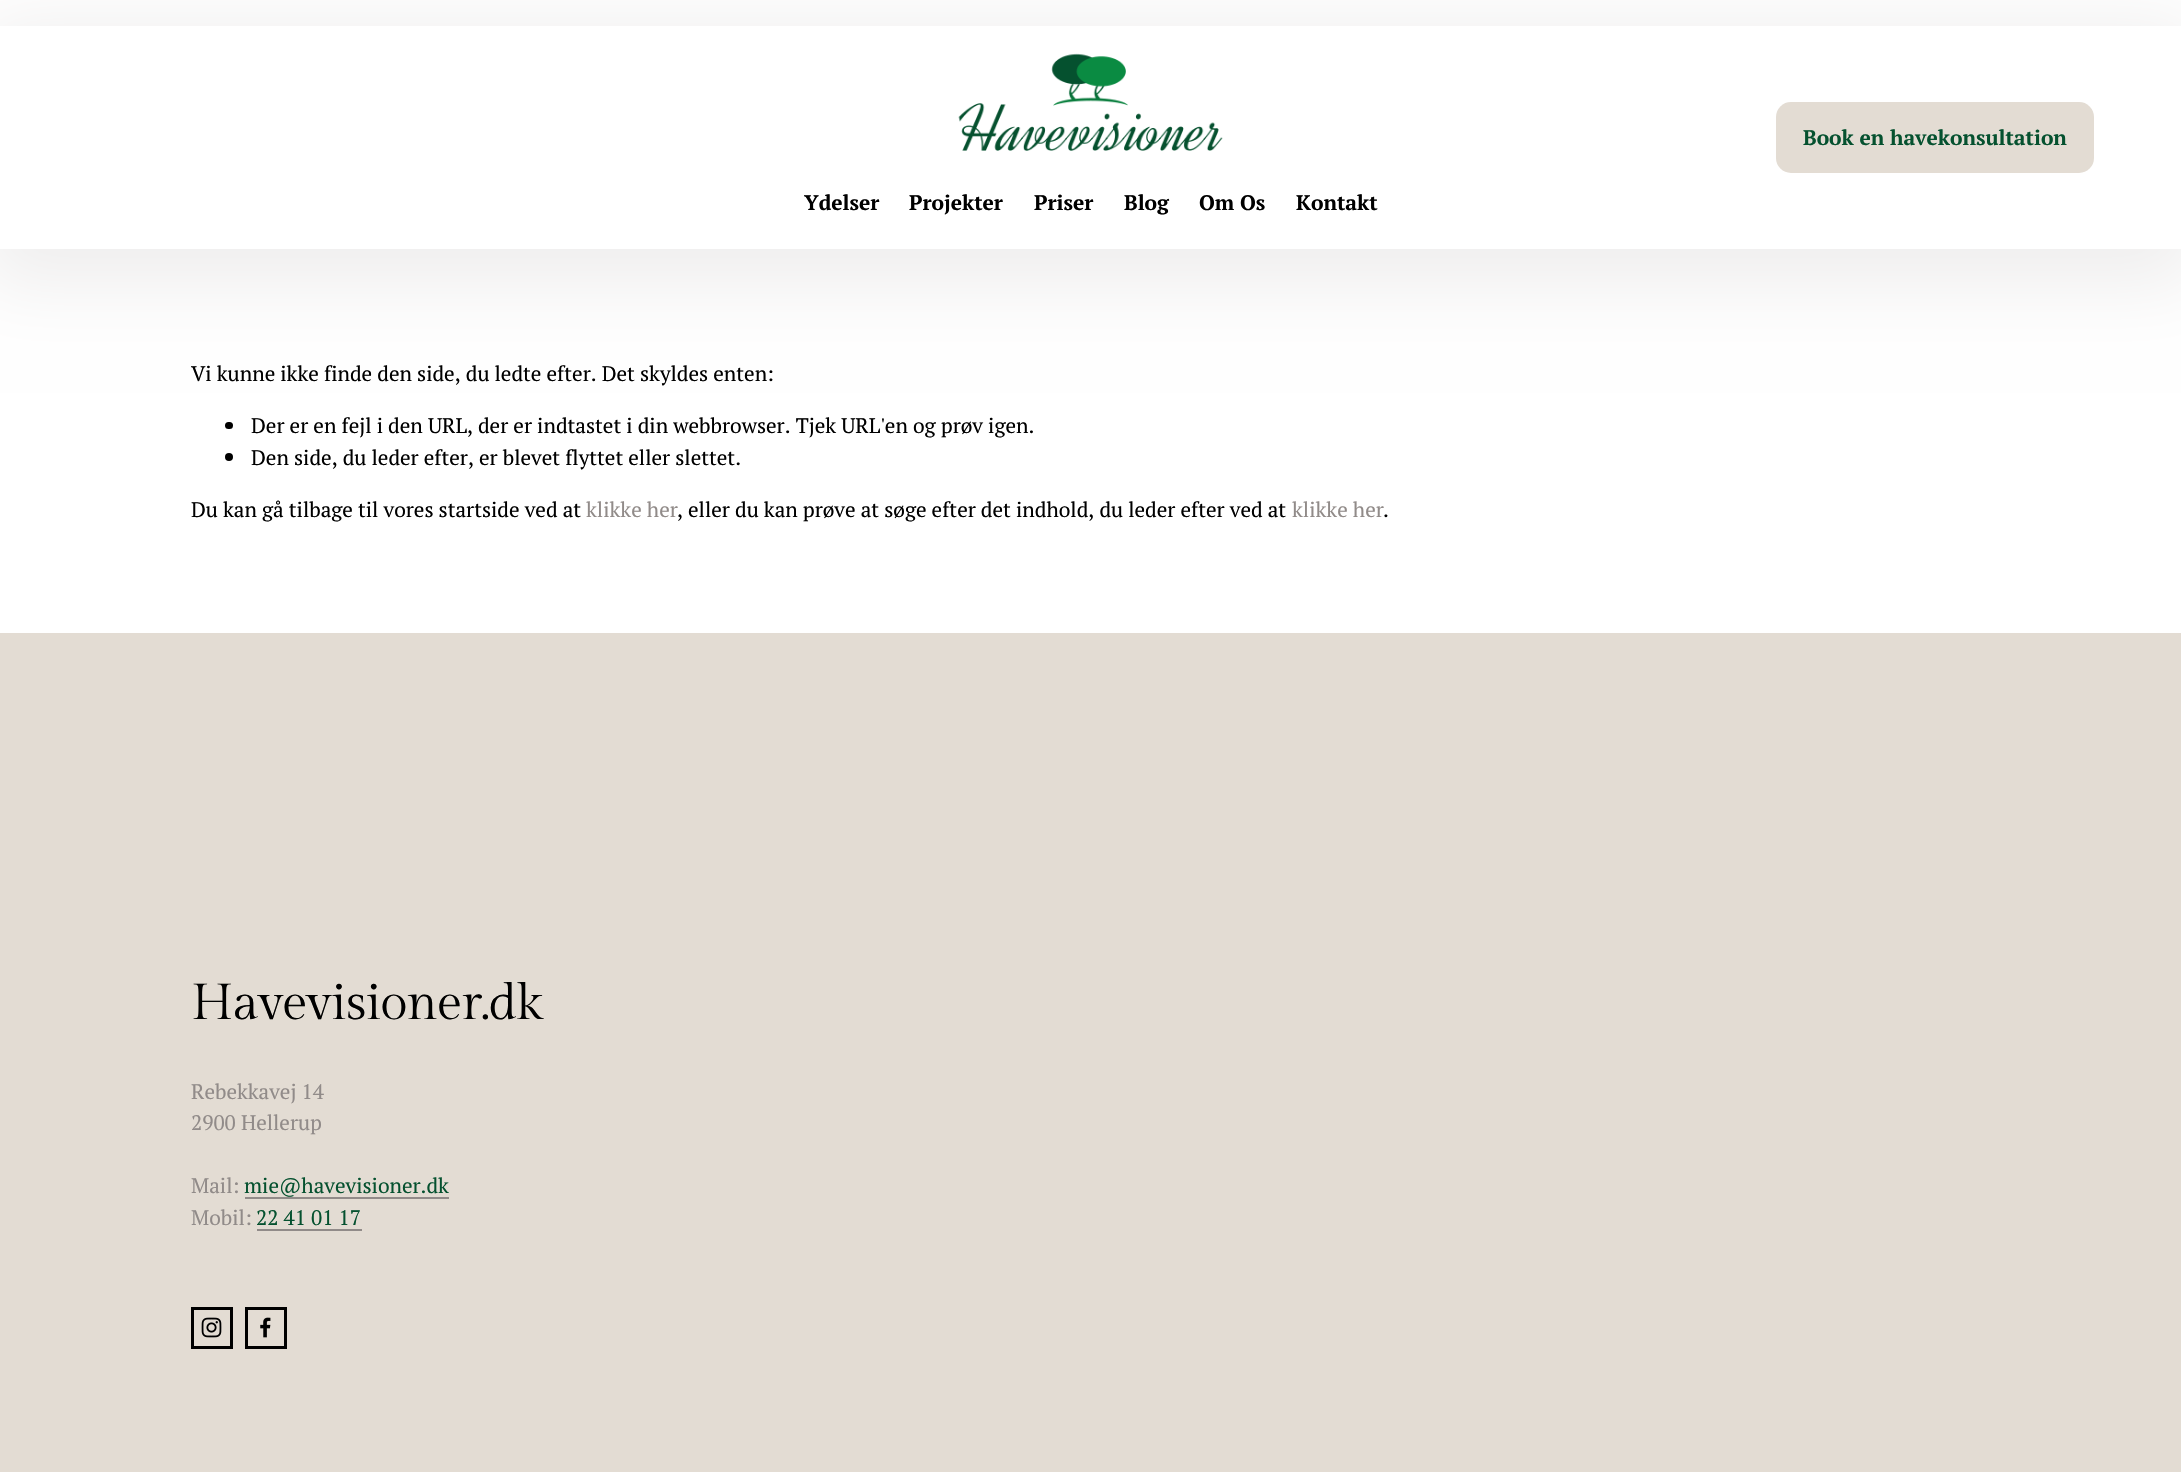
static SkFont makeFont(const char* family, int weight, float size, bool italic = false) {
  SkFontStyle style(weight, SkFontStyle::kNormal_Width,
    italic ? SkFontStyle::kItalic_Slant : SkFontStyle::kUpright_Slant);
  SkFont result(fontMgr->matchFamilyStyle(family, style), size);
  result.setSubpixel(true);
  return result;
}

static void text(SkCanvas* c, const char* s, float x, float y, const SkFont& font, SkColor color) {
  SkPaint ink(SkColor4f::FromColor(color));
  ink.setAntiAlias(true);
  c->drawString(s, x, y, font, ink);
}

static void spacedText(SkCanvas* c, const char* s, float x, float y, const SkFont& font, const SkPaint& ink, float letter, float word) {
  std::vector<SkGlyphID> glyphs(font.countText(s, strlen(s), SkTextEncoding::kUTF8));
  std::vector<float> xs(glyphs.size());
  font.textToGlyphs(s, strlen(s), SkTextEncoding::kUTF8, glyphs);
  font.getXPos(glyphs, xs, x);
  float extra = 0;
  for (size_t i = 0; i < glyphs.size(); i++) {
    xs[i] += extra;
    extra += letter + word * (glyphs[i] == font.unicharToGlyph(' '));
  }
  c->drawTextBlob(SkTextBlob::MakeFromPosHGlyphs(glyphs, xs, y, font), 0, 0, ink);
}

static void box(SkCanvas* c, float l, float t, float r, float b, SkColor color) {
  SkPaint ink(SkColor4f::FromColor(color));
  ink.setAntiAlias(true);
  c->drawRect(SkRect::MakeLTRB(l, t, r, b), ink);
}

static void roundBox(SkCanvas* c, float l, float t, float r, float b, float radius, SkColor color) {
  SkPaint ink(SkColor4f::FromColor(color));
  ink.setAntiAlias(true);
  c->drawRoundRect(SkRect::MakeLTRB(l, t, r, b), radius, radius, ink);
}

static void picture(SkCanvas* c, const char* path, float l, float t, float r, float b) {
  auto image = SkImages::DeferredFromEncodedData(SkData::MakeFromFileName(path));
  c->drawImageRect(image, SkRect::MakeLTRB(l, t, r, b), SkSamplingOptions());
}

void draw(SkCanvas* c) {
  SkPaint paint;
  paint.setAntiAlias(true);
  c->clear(0xffffffff);
  c->save();
  c->clipPath(SkPathBuilder(SkPathFillType::kEvenOdd).moveTo(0, 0).lineTo(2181, 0).lineTo(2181, 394).lineTo(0, 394).close().moveTo(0, 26).lineTo(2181, 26).lineTo(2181, 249).lineTo(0, 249).close().detach(), true);
  paint.setColor(0xffefeeee);
  paint.setMaskFilter(SkMaskFilter::MakeBlur(kNormal_SkBlurStyle, 36));
  c->drawRect(SkRect::MakeLTRB(-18, 26, 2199, 285), paint);
  paint.setMaskFilter(nullptr);
  c->restore();
  roundBox(c, 1776, 102, 2094, 173, 15, 0xffe3dcd3);
  SkFont face1 = makeFont("PT Serif", 700, 21);
  text(c, "Book en havekonsultation", 1803, 145, face1, 0xff05512f);
  picture(c, "img_01.png", 958, 53, 1223, 151);
  text(c, "Ydelser", 804, 210, face1, 0xff000000);
  text(c, "Projekter", 909, 210, face1, 0xff000000);
  text(c, "Priser", 1034, 210, face1, 0xff000000);
  text(c, "Blog", 1124, 210, face1, 0xff000000);
  text(c, "Om Os", 1199, 210, face1, 0xff000000);
  text(c, "Kontakt", 1296, 210, face1, 0xff000000);
  SkFont face2 = makeFont("PT Serif", 400, 21);
  text(c, "Vi kunne ikke finde den side, du ledte efter. Det skyldes enten:", 191, 381, face2, 0xff000000);
  roundBox(c, 225, 422, 233, 429, 3.5f, 0xff000000);
  text(c, "Der er en fejl i den URL, der er indtastet i din webbrowser. Tjek URL'en og prøv igen.", 251, 433, face2, 0xff000000);
  paint.setColor(0xff000000);
  c->drawCircle(229, 457, 4, paint);
  text(c, "Den side, du leder efter, er blevet flyttet eller slettet.", 251, 465, face2, 0xff000000);
  text(c, "Du kan gå tilbage til vores startside ved at", 191, 517, face2, 0xff000000);
  text(c, "klikke her", 586, 517, face2, 0xff918b89);
  text(c, ", eller du kan prøve at søge efter det indhold, du leder efter ved at", 677, 517, face2, 0xff000000);
  text(c, "klikke her", 1292, 517, face2, 0xff918b89);
  text(c, ".", 1383, 517, face2, 0xff000000);
  box(c, 0, 633, 2181, 1472, 0xffe3dcd3);
  SkFont face3 = makeFont("Gilda Display", 400, 50.5f);
  spacedText(c, "Havevisioner.dk", 191, 1019, face3, paint, -1, 0);
  text(c, "Rebekkavej 14", 191, 1099, face2, 0xff918b89);
  text(c, "2900 Hellerup", 191, 1130, face2, 0xff918b89);
  text(c, "Mail:", 191, 1193, face2, 0xff918b89);
  text(c, "mie@havevisioner.dk", 244, 1193, face2, 0xff05512f);
  box(c, 245, 1197, 449, 1199, 0xff918b89);
  text(c, "Mobil:", 191, 1225, face2, 0xff918b89);
  text(c, "22 41 01 17", 256, 1225, face2, 0xff05512f);
  box(c, 257, 1229, 362, 1231, 0xff918b89);
  paint.setStyle(SkPaint::kStroke_Style);
  paint.setStrokeWidth(3);
  c->drawRect(SkRect::MakeLTRB(192.5f, 1308.5f, 231.5f, 1347.5f), paint);
  picture(c, "img_02.png", 201, 1317, 222, 1338);
  c->drawRect(SkRect::MakeLTRB(246.5f, 1308.5f, 285.5f, 1347.5f), paint);
  picture(c, "img_03.png", 260, 1317, 271, 1338);
}
